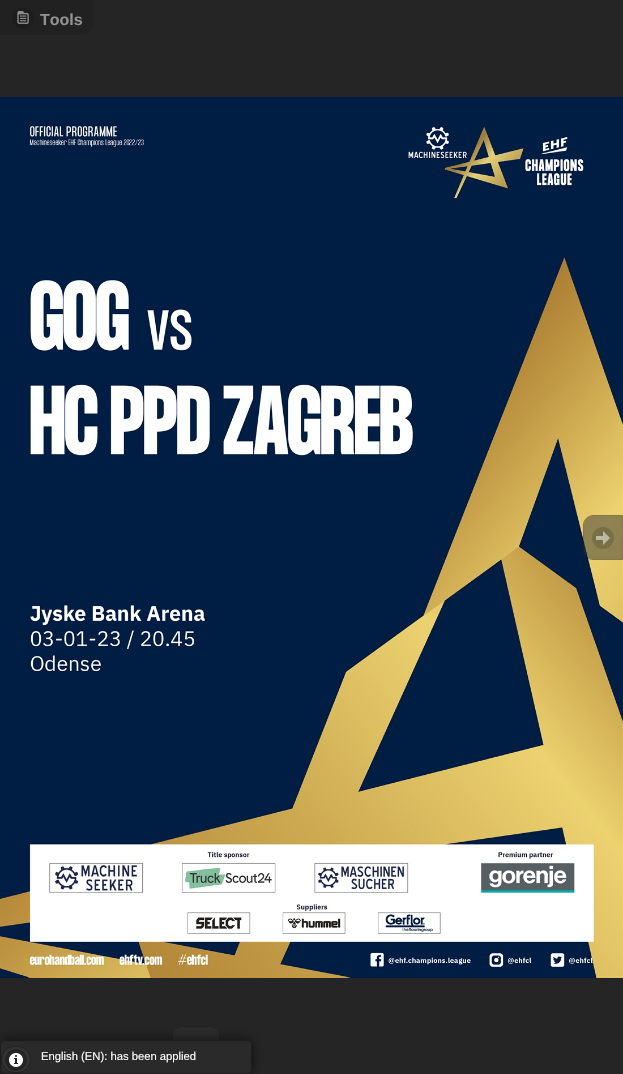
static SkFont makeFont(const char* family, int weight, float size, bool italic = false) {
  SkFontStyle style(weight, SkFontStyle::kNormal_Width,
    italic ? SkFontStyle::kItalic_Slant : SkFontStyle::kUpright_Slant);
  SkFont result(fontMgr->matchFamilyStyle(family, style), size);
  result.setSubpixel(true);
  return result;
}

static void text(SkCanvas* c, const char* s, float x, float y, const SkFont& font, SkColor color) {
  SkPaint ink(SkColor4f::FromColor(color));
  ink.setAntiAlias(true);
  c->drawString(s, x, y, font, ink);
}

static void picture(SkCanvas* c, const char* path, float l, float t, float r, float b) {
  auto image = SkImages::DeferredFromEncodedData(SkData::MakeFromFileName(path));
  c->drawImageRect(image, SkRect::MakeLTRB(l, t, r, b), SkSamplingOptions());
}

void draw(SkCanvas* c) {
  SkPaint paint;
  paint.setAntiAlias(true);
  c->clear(0xff252525);
  paint.setColor(0xff212121);
  c->drawPath(SkPathBuilder().moveTo(0, 0).lineTo(93, 0).lineTo(93, 25).cubicTo(93, 30.5f, 88.5f, 35, 83, 35).lineTo(0, 35).close().detach(), paint);
  paint.setColor(0xff1d1d1d);
  c->drawCircle(23, 18, 11, paint);
  picture(c, "img_01.png", 17, 11, 29, 24);
  SkFont face1 = makeFont("Liberation Sans", 700, 16);
  text(c, "Tools", 40, 25, face1, 0xff929292);
  picture(c, "img_02.png", 0, 97, 623, 978);
  paint.setColor(0x80333333);
  c->drawPath(SkPathBuilder().moveTo(593, 516).lineTo(622, 516).lineTo(622, 559).lineTo(593, 559).cubicTo(588, 559, 584, 555, 584, 550).lineTo(584, 525).cubicTo(584, 520, 588, 516, 593, 516).close().detach(), paint);
  paint.setStyle(SkPaint::kStroke_Style);
  paint.setStrokeWidth(1);
  paint.setColor(0x801f1f1f);
  c->drawPath(SkPathBuilder().moveTo(593, 515.5f).lineTo(622.5f, 515.5f).lineTo(622.5f, 559.5f).lineTo(593, 559.5f).cubicTo(588, 559.5f, 583.5f, 555, 583.5f, 550).lineTo(583.5f, 525).cubicTo(583.5f, 520, 588, 515.5f, 593, 515.5f).close().detach(), paint);
  paint.setStyle(SkPaint::kFill_Style);
  paint.setColor(0xff796f44);
  c->drawCircle(603, 538, 11, paint);
  picture(c, "img_03.png", 596, 531, 610, 545);
  paint.setColor(0xff2c2c2c);
  c->drawRoundRect(SkRect::MakeLTRB(172.5f, 1026.5f, 219.5f, 1055.5f), 9.5f, 9.5f, paint);
  paint.setStyle(SkPaint::kStroke_Style);
  paint.setColor(0xff222222);
  c->drawRoundRect(SkRect::MakeLTRB(172.5f, 1026.5f, 219.5f, 1055.5f), 9.5f, 9.5f, paint);
  c->save();
  c->clipPath(SkPathBuilder(SkPathFillType::kEvenOdd).moveTo(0, 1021).lineTo(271, 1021).lineTo(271, 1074).lineTo(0, 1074).close().moveTo(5, 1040).lineTo(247, 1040).cubicTo(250, 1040, 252, 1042, 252, 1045).lineTo(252, 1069).cubicTo(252, 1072, 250, 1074, 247, 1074).lineTo(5, 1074).cubicTo(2, 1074, 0, 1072, 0, 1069).lineTo(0, 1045).cubicTo(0, 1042, 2, 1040, 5, 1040).close().detach(), true);
  paint.setStyle(SkPaint::kFill_Style);
  paint.setColor(0x99000000);
  paint.setMaskFilter(SkMaskFilter::MakeBlur(kNormal_SkBlurStyle, 6));
  c->drawRoundRect(SkRect::MakeLTRB(0, 1040, 252, 1074), 5, 5, paint);
  paint.setMaskFilter(nullptr);
  c->restore();
  paint.setColor(0xff2a2a2a);
  c->drawRoundRect(SkRect::MakeLTRB(0.5f, 1040.5f, 251.5f, 1073.5f), 4.5f, 4.5f, paint);
  paint.setStyle(SkPaint::kStroke_Style);
  paint.setColor(0xff1d1d1d);
  c->drawRoundRect(SkRect::MakeLTRB(0.5f, 1040.5f, 251.5f, 1073.5f), 4.5f, 4.5f, paint);
  paint.setStyle(SkPaint::kFill_Style);
  paint.setColor(0xff333333);
  c->drawRoundRect(SkRect::MakeLTRB(1.5f, 1046.5f, 30.5f, 1072.5f), 13, 13, paint);
  paint.setStyle(SkPaint::kStroke_Style);
  paint.setColor(0xff1f1f1f);
  c->drawRoundRect(SkRect::MakeLTRB(1.5f, 1046.5f, 30.5f, 1072.5f), 13, 13, paint);
  paint.setStyle(SkPaint::kFill_Style);
  paint.setColor(0xff242424);
  c->drawCircle(16, 1060, 11, paint);
  picture(c, "img_04.png", 9, 1053, 23, 1067);
  SkFont face2 = makeFont("Liberation Sans", 400, 11.25f);
  text(c, "English (EN): has been applied", 41, 1060, face2, 0xffffffff);
}
